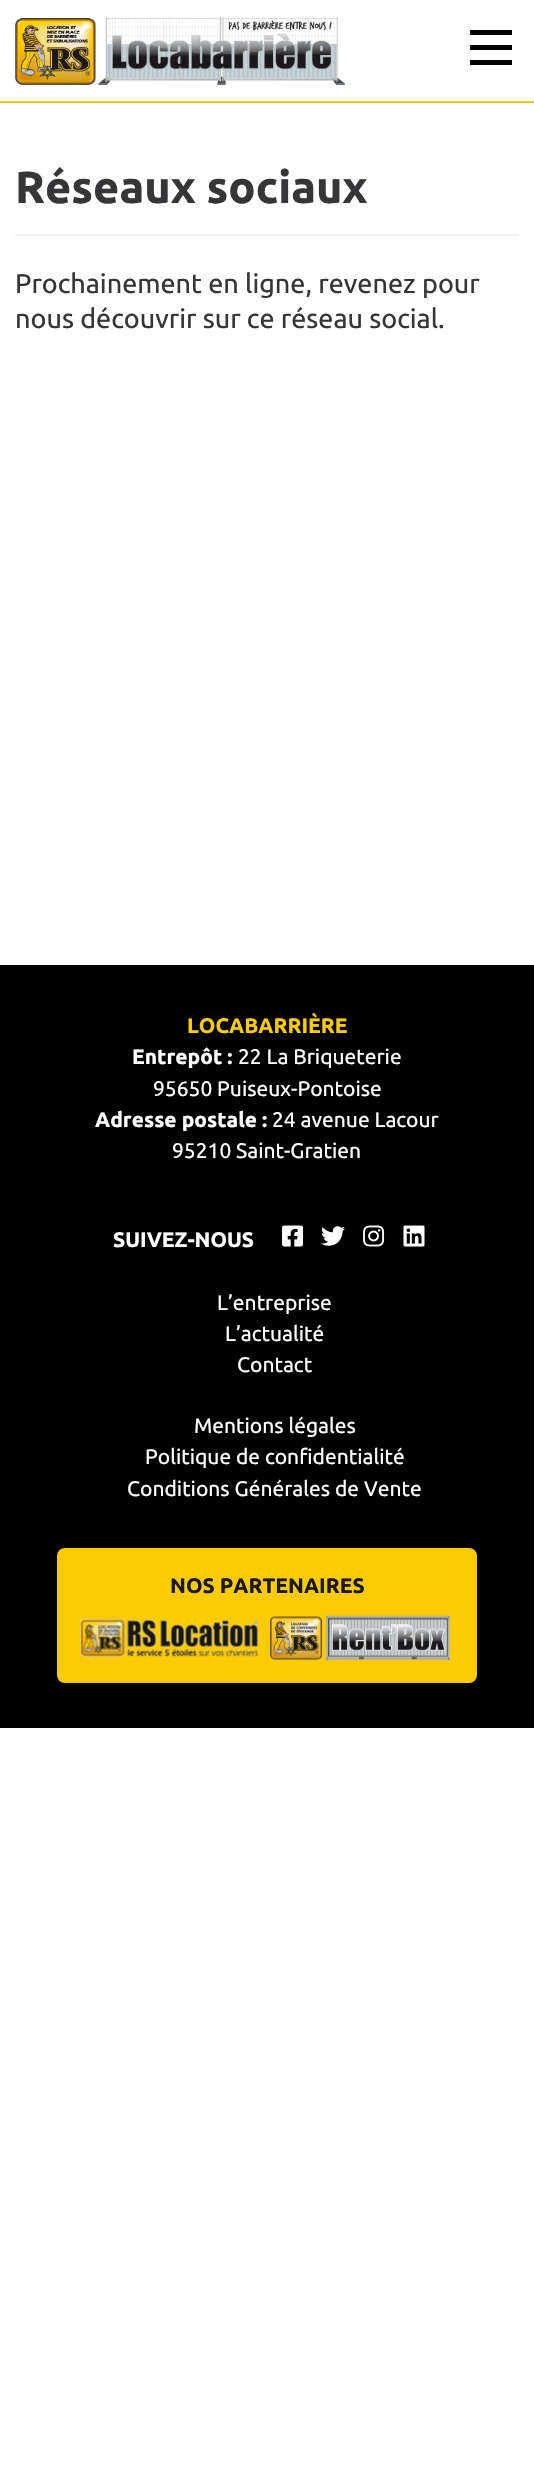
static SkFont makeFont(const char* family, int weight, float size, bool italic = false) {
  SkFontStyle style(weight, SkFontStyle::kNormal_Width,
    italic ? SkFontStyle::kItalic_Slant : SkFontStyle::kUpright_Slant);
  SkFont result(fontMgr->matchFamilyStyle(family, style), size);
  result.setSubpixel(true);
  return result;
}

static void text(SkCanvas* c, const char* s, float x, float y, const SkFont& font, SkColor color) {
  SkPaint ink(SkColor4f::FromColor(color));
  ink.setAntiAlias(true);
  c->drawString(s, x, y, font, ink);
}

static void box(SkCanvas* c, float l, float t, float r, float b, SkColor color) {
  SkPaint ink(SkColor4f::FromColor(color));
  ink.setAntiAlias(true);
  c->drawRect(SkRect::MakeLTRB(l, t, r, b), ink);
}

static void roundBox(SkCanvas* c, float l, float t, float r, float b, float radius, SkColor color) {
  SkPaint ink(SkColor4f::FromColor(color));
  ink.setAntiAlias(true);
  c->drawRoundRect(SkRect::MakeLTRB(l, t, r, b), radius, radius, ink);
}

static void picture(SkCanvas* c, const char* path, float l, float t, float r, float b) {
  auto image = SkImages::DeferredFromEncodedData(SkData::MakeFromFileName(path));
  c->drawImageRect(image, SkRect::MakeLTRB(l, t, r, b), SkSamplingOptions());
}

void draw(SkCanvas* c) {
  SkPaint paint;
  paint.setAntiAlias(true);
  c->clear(0xffffffff);
  box(c, 0, 101, 534, 103, 0xfffdcb03);
  picture(c, "img_01.png", 15, 17, 345, 86);
  box(c, 470, 30, 512, 35, 0xff000000);
  box(c, 470, 45, 512, 50, 0xff000000);
  box(c, 470, 60, 512, 65, 0xff000000);
  box(c, 15, 234, 519, 236, 0xfff1f2f3);
  SkFont face1 = makeFont("Ubuntu", 700, 45);
  text(c, "Réseaux sociaux", 15, 203, face1, 0xff363638);
  SkFont face2 = makeFont("Ubuntu", 400, 27);
  text(c, "Prochainement en ligne, revenez pour", 15, 293, face2, 0xff363638);
  text(c, "nous découvrir sur ce réseau social.", 15, 328, face2, 0xff363638);
  box(c, 0, 965, 534, 1728, 0xff000000);
  SkFont face3 = makeFont("Ubuntu", 700, 21);
  text(c, "LOCABARRIÈRE", 187, 1033, face3, 0xfffdcb03);
  text(c, "Entrepôt :", 132, 1064, face3, 0xffffffff);
  SkFont face4 = makeFont("Ubuntu", 400, 21);
  text(c, "22 La Briqueterie", 238, 1064, face4, 0xffffffff);
  text(c, "95650 Puiseux-Pontoise", 153, 1096, face4, 0xffffffff);
  text(c, "Adresse postale :", 95, 1127, face3, 0xffffffff);
  text(c, "24 avenue Lacour", 272, 1127, face4, 0xffffffff);
  text(c, "95210 Saint-Gratien", 172, 1158, face4, 0xffffffff);
  text(c, "SUIVEZ-NOUS", 113, 1247, face3, 0xffffffff);
  picture(c, "img_02.png", 282, 1225, 303, 1247);
  picture(c, "img_03.png", 321, 1226, 345, 1246);
  picture(c, "img_04.png", 363, 1225, 385, 1247);
  picture(c, "img_05.png", 403, 1225, 425, 1247);
  text(c, "L’entreprise", 217, 1310, face4, 0xffffffff);
  text(c, "L’actualité", 225, 1341, face4, 0xffffffff);
  text(c, "Contact", 237, 1372, face4, 0xffffffff);
  text(c, "Mentions légales", 194, 1433, face4, 0xffffffff);
  text(c, "Politique de confidentialité", 145, 1464, face4, 0xffffffff);
  text(c, "Conditions Générales de Vente", 127, 1496, face4, 0xffffffff);
  roundBox(c, 57, 1548, 477, 1683, 8, 0xfffdcb03);
  text(c, "NOS PARTENAIRES", 170, 1593, face3, 0xff1a181b);
  picture(c, "img_06.png", 80, 1619, 259, 1657);
  picture(c, "img_07.png", 270, 1615, 450, 1661);
}
